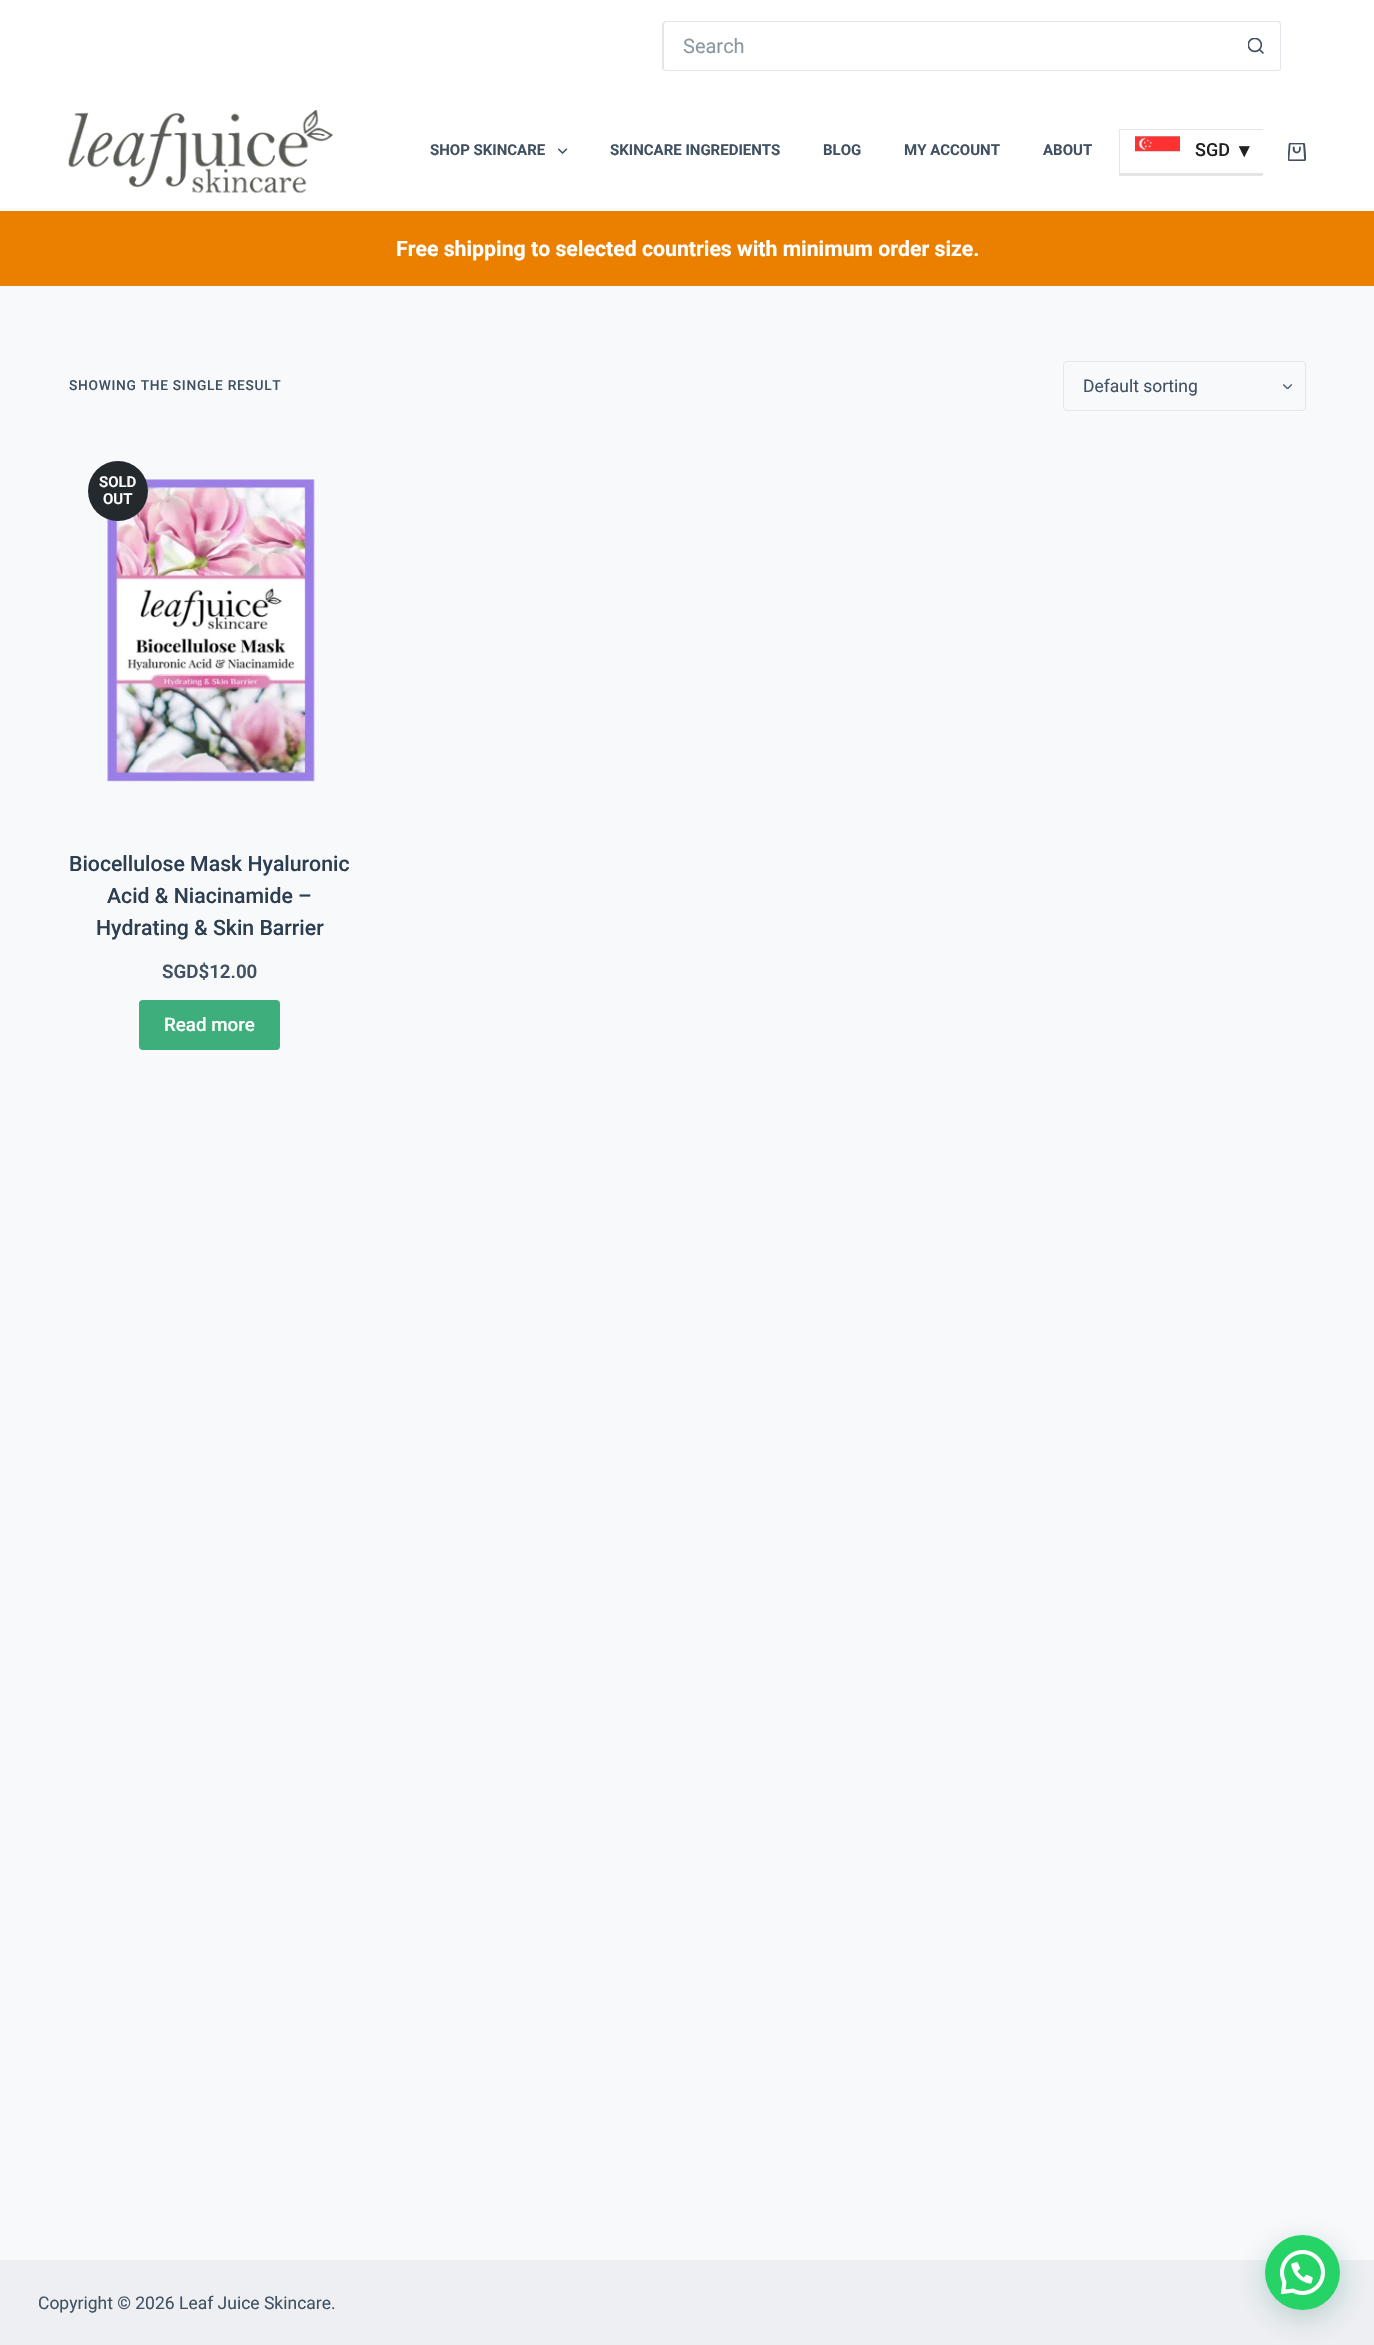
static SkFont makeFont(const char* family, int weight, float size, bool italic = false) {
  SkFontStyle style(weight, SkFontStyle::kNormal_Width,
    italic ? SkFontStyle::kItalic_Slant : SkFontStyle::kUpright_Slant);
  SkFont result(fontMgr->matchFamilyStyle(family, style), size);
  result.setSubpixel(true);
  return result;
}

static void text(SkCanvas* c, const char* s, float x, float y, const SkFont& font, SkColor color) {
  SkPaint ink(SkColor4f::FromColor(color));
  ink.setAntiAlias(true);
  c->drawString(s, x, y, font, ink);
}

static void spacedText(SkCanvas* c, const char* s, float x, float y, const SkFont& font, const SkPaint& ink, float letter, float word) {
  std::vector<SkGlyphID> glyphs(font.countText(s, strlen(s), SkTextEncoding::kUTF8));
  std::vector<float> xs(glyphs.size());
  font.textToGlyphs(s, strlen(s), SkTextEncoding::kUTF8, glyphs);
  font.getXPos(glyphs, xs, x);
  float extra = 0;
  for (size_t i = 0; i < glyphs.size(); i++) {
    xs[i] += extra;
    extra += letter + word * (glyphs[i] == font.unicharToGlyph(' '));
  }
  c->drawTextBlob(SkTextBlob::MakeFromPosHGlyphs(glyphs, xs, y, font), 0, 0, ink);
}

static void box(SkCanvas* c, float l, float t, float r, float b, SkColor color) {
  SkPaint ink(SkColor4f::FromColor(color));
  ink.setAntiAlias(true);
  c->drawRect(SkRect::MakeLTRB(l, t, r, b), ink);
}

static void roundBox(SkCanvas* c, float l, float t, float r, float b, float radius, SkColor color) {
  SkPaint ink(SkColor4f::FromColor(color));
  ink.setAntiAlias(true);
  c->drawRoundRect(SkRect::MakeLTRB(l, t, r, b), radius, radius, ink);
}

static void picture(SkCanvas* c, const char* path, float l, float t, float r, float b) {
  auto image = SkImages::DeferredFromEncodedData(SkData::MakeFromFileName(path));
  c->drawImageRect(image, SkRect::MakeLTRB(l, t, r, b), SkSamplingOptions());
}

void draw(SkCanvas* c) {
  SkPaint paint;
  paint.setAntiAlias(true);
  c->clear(0xfff8f9fb);
  box(c, 0, 0, 1374, 211, 0xffffffff);
  paint.setColor(0xffe2e7ed);
  c->drawPath(SkPathBuilder(SkPathFillType::kEvenOdd).moveTo(666, 21).lineTo(1231, 21).lineTo(1231, 71).lineTo(666, 71).cubicTo(664, 71, 662, 70, 662, 68).lineTo(662, 25).cubicTo(662, 23, 664, 21, 666, 21).close().moveTo(666, 22).lineTo(1231, 22).lineTo(1231, 70).lineTo(666, 70).cubicTo(665, 70, 664, 69, 664, 68).lineTo(664, 25).cubicTo(664, 24, 665, 22, 666, 22).close().detach(), paint);
  SkFont face1 = makeFont("Roboto", 400, 20);
  text(c, "Search", 683, 53, face1, 0xff8d97a0);
  c->drawPath(SkPathBuilder(SkPathFillType::kEvenOdd).moveTo(1231, 21).lineTo(1278, 21).cubicTo(1280, 21, 1281, 23, 1281, 25).lineTo(1281, 68).cubicTo(1281, 70, 1280, 71, 1278, 71).lineTo(1231, 71).close().moveTo(1231, 22).lineTo(1278, 22).cubicTo(1279, 22, 1280, 24, 1280, 25).lineTo(1280, 68).cubicTo(1280, 69, 1279, 70, 1278, 70).lineTo(1231, 70).close().detach(), paint);
  picture(c, "img_01.png", 1248, 38, 1264, 54);
  picture(c, "img_02.png", 68, 110, 333, 193);
  SkFont face2 = makeFont("Roboto", 700, 15);
  text(c, "SHOP SKINCARE", 430, 155, face2, 0xff415161);
  picture(c, "img_03.png", 558, 148, 568, 154);
  text(c, "SKINCARE INGREDIENTS", 610, 155, face2, 0xff415161);
  text(c, "BLOG", 823, 155, face2, 0xff415161);
  text(c, "MY ACCOUNT", 904, 155, face2, 0xff415161);
  text(c, "ABOUT", 1043, 155, face2, 0xff415161);
  box(c, 1119, 129, 1263, 130, 0xffe5e5e5);
  box(c, 1119, 173, 1263, 176, 0xffe5e5e5);
  box(c, 1119, 129, 1120, 175, 0xffe5e5e5);
  picture(c, "img_04.png", 1135, 136, 1180, 152);
  SkFont face3 = makeFont("Roboto", 500, 18);
  text(c, "SGD", 1195, 156, face3, 0xff212121);
  SkFont face4 = makeFont("Liberation Sans", 400, 18.75f);
  text(c, "▼", 1235, 157, face4, 0xff212121);
  picture(c, "img_05.png", 1288, 143, 1306, 161);
  box(c, 0, 211, 1374, 286, 0xffeb7f00);
  SkFont face5 = makeFont("Roboto", 700, 21.25f);
  text(c, "Free shipping to selected countries with minimum order size.", 396, 256, face5, 0xffffffff);
  SkFont face6 = makeFont("Roboto", 500, 13.75f);
  paint.setColor(0xff415161);
  spacedText(c, "SHOWING THE SINGLE RESULT", 69, 390, face6, paint, 0.7f, 0);
  picture(c, "img_06.png", 1283, 384, 1293, 389);
  paint.setStyle(SkPaint::kStroke_Style);
  paint.setStrokeWidth(1);
  paint.setColor(0xffe2e7ed);
  c->drawRoundRect(SkRect::MakeLTRB(1063.5f, 361.5f, 1305.5f, 410.5f), 3.5f, 3.5f, paint);
  SkFont face7 = makeFont("Roboto", 400, 17.5f);
  text(c, "Default sorting", 1083, 392, face7, 0xff415161);
  picture(c, "img_07.png", 107, 479, 315, 782);
  paint.setStyle(SkPaint::kFill_Style);
  paint.setColor(0xff24292e);
  c->drawCircle(118, 491, 30, paint);
  SkFont face8 = makeFont("Roboto", 600, 15);
  text(c, "SOLD", 99, 487, face8, 0xffffffff);
  text(c, "OUT", 103, 504, face8, 0xffffffff);
  SkFont face9 = makeFont("Roboto", 500, 21.25f);
  text(c, "Biocellulose Mask Hyaluronic", 69, 871, face9, 0xff2c3e50);
  text(c, "Acid & Niacinamide –", 107, 903, face9, 0xff2c3e50);
  text(c, "Hydrating & Skin Barrier", 96, 935, face9, 0xff2c3e50);
  SkFont face10 = makeFont("Roboto", 600, 18.75f);
  text(c, "SGD$12.00", 162, 978, face10, 0xff415161);
  roundBox(c, 139, 1000, 280, 1050, 4, 0xff3eaf7c);
  SkFont face11 = makeFont("Roboto", 500, 18.75f);
  text(c, "Read more", 164, 1031, face11, 0xffffffff);
  box(c, 0, 2260, 1374, 2345, 0xffedeff2);
  text(c, "Copyright © 2026 Leaf Juice Skincare.", 38, 2309, face7, 0xff415161);
  paint.setColor(0x3d075e54);
  paint.setMaskFilter(SkMaskFilter::MakeBlur(kNormal_SkBlurStyle, 15));
  c->drawRoundRect(SkRect::MakeLTRB(1266, 2243, 1341, 2318), 37.5f, 37.5f, paint);
  paint.setMaskFilter(nullptr);
  paint.setColor(0xff25d366);
  c->drawCircle(1302.5f, 2272.5f, 37.5f, paint);
  picture(c, "img_08.png", 1280, 2250, 1325, 2295);
}
